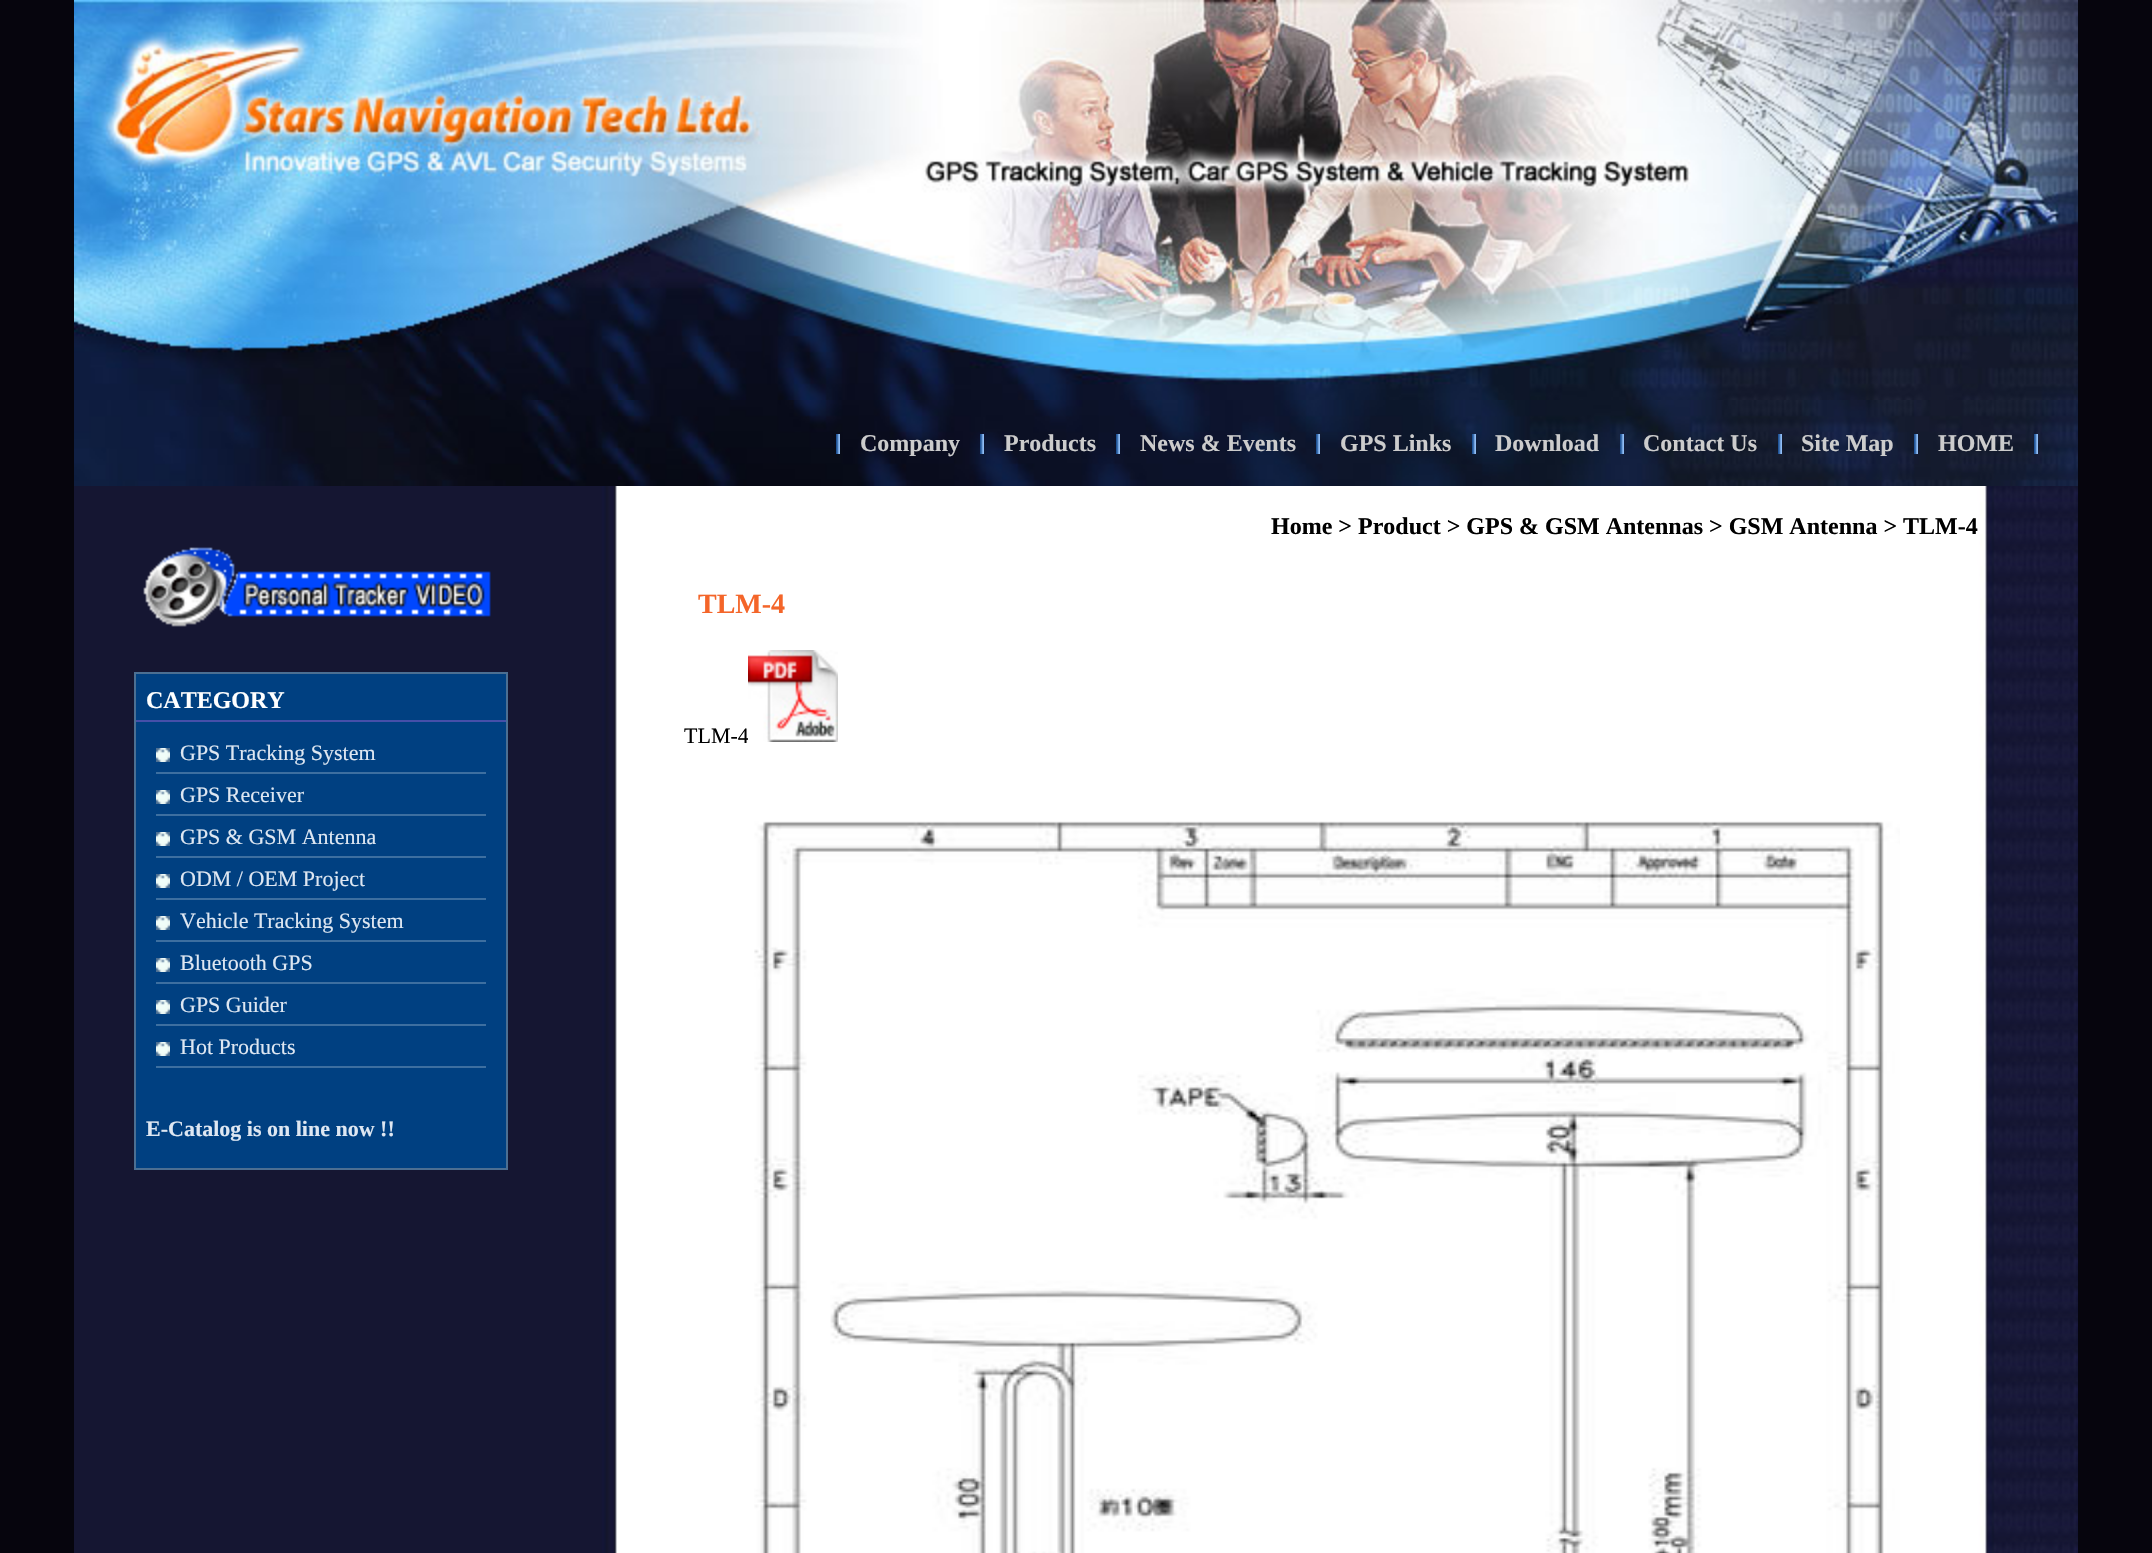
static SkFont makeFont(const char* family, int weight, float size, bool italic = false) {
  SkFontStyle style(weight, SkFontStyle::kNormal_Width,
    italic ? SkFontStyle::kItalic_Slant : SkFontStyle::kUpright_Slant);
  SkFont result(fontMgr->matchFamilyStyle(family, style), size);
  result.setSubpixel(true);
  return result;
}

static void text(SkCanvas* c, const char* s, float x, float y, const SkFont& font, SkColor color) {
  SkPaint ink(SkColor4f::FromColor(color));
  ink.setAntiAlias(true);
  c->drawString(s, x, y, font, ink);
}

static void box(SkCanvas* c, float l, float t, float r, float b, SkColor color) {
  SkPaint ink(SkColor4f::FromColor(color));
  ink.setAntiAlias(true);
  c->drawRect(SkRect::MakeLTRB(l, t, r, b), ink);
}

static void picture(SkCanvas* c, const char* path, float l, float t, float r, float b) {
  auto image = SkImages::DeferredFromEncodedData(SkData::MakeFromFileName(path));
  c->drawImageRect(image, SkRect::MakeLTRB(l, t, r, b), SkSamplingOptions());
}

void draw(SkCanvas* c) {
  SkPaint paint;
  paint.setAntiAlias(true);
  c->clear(0xff06050d);
  picture(c, "img_01.png", 74, 0, 2078, 400);
  picture(c, "img_02.png", 74, 400, 2078, 486);
  picture(c, "img_03.png", 836, 434, 840, 454);
  SkFont face1 = makeFont("Liberation Serif", 700, 24);
  text(c, "Company", 860, 451, face1, 0xffcccccc);
  picture(c, "img_03.png", 980, 434, 984, 454);
  text(c, "Products", 1004, 451, face1, 0xffcccccc);
  picture(c, "img_03.png", 1116, 434, 1120, 454);
  text(c, "News & Events", 1140, 451, face1, 0xffcccccc);
  picture(c, "img_03.png", 1316, 434, 1320, 454);
  text(c, "GPS Links", 1340, 451, face1, 0xffcccccc);
  picture(c, "img_03.png", 1472, 434, 1476, 454);
  text(c, "Download", 1495, 451, face1, 0xffcccccc);
  picture(c, "img_03.png", 1620, 434, 1624, 454);
  text(c, "Contact Us", 1643, 451, face1, 0xffcccccc);
  picture(c, "img_03.png", 1778, 434, 1782, 454);
  text(c, "Site Map", 1801, 451, face1, 0xffcccccc);
  picture(c, "img_03.png", 1914, 434, 1918, 454);
  text(c, "HOME", 1938, 451, face1, 0xffcccccc);
  picture(c, "img_03.png", 2034, 434, 2038, 454);
  picture(c, "img_04.png", 74, 486, 2078, 1553);
  text(c, "Home > Product > GPS & GSM Antennas > GSM Antenna > TLM-4", 1271, 534, face1, 0xff000000);
  SkFont face2 = makeFont("Liberation Serif", 700, 28);
  text(c, "TLM-4", 698, 613, face2, 0xfff46529);
  SkFont face3 = makeFont("Liberation Serif", 400, 22);
  text(c, "TLM-4", 684, 743, face3, 0xff000000);
  picture(c, "img_05.png", 748, 650, 838, 742);
  picture(c, "img_06.png", 754, 821, 1900, 1553);
  picture(c, "img_07.png", 143, 547, 491, 627);
  paint.setColor(0xff004081);
  c->drawRect(SkRect::MakeLTRB(135, 673, 507, 1169), paint);
  paint.setStyle(SkPaint::kStroke_Style);
  paint.setStrokeWidth(2);
  paint.setColor(0xff4c6f92);
  c->drawRect(SkRect::MakeLTRB(135, 673, 507, 1169), paint);
  box(c, 136, 720, 506, 722, 0xff464fa9);
  text(c, "CATEGORY", 146, 708, face1, 0xffffffff);
  picture(c, "img_08.png", 156, 748, 170, 762);
  box(c, 156, 772, 486, 774, 0xff3d6fa0);
  text(c, "GPS Tracking System", 180, 760, face3, 0xffdee7f2);
  picture(c, "img_08.png", 156, 790, 170, 804);
  box(c, 156, 814, 486, 816, 0xff3d6fa0);
  text(c, "GPS Receiver", 180, 802, face3, 0xffdee7f2);
  picture(c, "img_08.png", 156, 832, 170, 846);
  box(c, 156, 856, 486, 858, 0xff3d6fa0);
  text(c, "GPS & GSM Antenna", 180, 844, face3, 0xffdee7f2);
  picture(c, "img_08.png", 156, 874, 170, 888);
  box(c, 156, 898, 486, 900, 0xff3d6fa0);
  text(c, "ODM / OEM Project", 180, 886, face3, 0xffdee7f2);
  picture(c, "img_08.png", 156, 916, 170, 930);
  box(c, 156, 940, 486, 942, 0xff3d6fa0);
  text(c, "Vehicle Tracking System", 180, 928, face3, 0xffdee7f2);
  picture(c, "img_08.png", 156, 958, 170, 972);
  box(c, 156, 982, 486, 984, 0xff3d6fa0);
  text(c, "Bluetooth GPS", 180, 970, face3, 0xffdee7f2);
  picture(c, "img_08.png", 156, 1000, 170, 1014);
  box(c, 156, 1024, 486, 1026, 0xff3d6fa0);
  text(c, "GPS Guider", 180, 1012, face3, 0xffdee7f2);
  picture(c, "img_08.png", 156, 1042, 170, 1056);
  box(c, 156, 1066, 486, 1068, 0xff3d6fa0);
  text(c, "Hot Products", 180, 1054, face3, 0xffdee7f2);
  SkFont face4 = makeFont("Liberation Serif", 700, 22);
  text(c, "E-Catalog is on line now !!", 146, 1136, face4, 0xffdee7f2);
}
